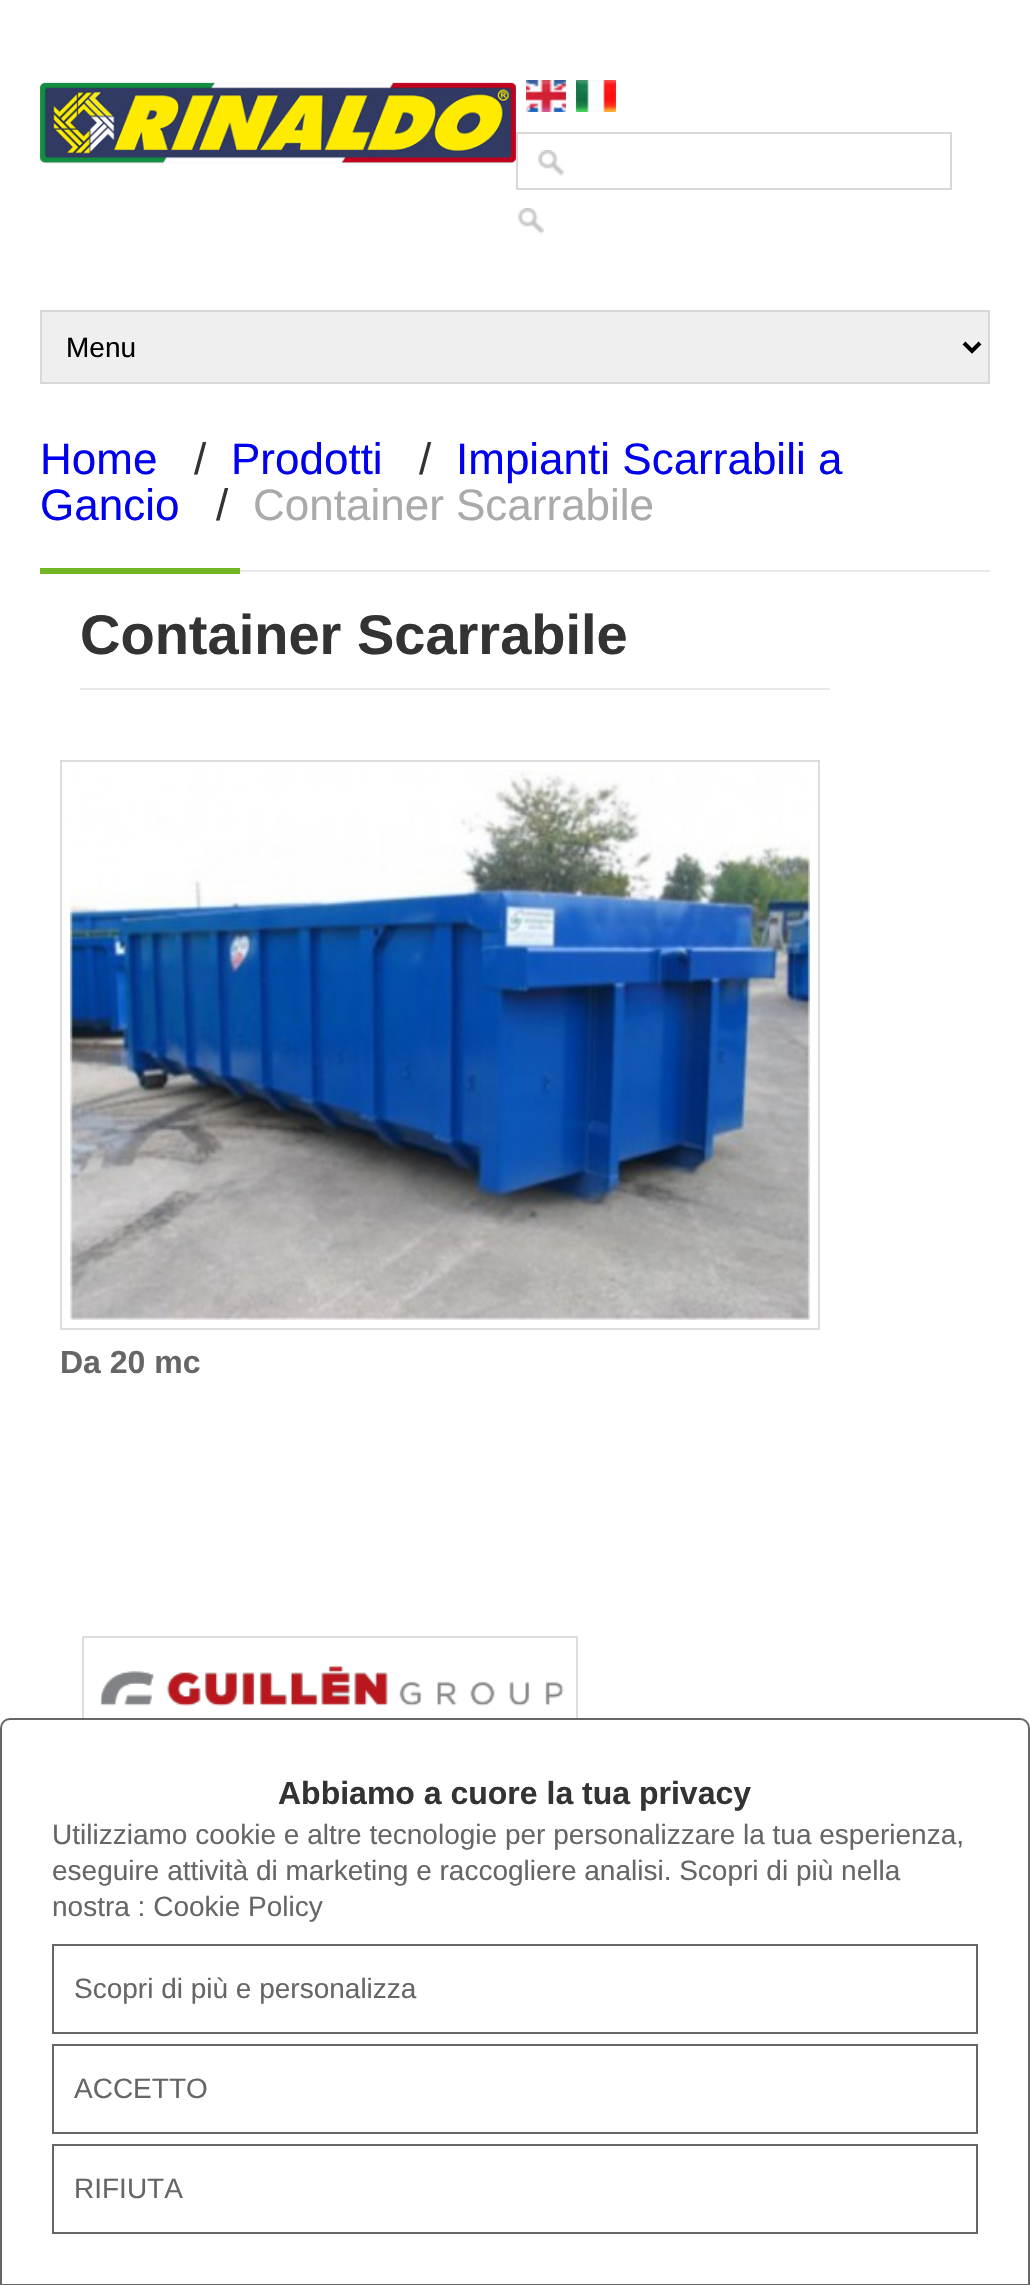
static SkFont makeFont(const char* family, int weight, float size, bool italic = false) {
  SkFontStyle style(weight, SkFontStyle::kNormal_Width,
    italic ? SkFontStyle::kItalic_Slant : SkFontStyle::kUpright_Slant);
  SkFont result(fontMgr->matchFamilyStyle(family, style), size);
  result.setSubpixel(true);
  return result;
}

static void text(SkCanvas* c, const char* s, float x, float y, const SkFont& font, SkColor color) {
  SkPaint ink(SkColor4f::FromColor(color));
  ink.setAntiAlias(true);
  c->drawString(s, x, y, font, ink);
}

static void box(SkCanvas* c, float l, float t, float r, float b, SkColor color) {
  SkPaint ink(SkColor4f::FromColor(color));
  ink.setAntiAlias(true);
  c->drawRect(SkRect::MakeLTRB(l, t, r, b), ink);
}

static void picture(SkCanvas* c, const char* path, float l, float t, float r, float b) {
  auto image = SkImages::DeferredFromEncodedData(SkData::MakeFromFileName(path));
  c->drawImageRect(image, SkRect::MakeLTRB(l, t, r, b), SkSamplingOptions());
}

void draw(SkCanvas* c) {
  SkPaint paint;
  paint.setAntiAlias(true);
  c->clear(0xffffffff);
  picture(c, "img_01.png", 40, 82, 516, 164);
  picture(c, "img_02.png", 526, 80, 566, 112);
  picture(c, "img_03.png", 576, 80, 616, 112);
  picture(c, "img_04.png", 538, 150, 564, 176);
  paint.setStyle(SkPaint::kStroke_Style);
  paint.setStrokeWidth(2);
  paint.setColor(0xffd8d8d8);
  c->drawRect(SkRect::MakeLTRB(517, 133, 951, 189), paint);
  picture(c, "img_04.png", 518, 208, 544, 234);
  paint.setStyle(SkPaint::kFill_Style);
  paint.setColor(0xffefefef);
  c->drawRect(SkRect::MakeLTRB(41, 311, 989, 383), paint);
  paint.setStyle(SkPaint::kStroke_Style);
  paint.setColor(0xffd8d8d8);
  c->drawRect(SkRect::MakeLTRB(41, 311, 989, 383), paint);
  paint.setStrokeWidth(4);
  paint.setColor(0xff000000);
  c->drawPath(SkPathBuilder().moveTo(964, 343).lineTo(972, 351).lineTo(980, 343).detach(), paint);
  SkFont face1 = makeFont("Liberation Sans", 400, 28);
  text(c, "Menu", 66, 357, face1, 0xff000000);
  box(c, 240, 570, 990, 572, 0xffe9e9e9);
  SkFont face2 = makeFont("Liberation Sans", 400, 44);
  text(c, "Home", 40, 474, face2, 0xff0000ee);
  text(c, "/", 194, 474, face2, 0xff333333);
  text(c, "Prodotti", 231, 474, face2, 0xff0000ee);
  text(c, "/", 419, 474, face2, 0xff333333);
  text(c, "Impianti Scarrabili a", 456, 474, face2, 0xff0000ee);
  text(c, "Gancio", 40, 520, face2, 0xff0000ee);
  text(c, "/", 216, 520, face2, 0xff333333);
  text(c, "Container Scarrabile", 253, 520, face2, 0xffaaaaaa);
  box(c, 40, 568, 240, 574, 0xff72b626);
  box(c, 80, 688, 830, 690, 0xffe9e9e9);
  SkFont face3 = makeFont("Liberation Sans", 700, 56);
  text(c, "Container Scarrabile", 80, 654, face3, 0xff333333);
  paint.setStrokeWidth(2);
  paint.setColor(0xffdddddd);
  c->drawRect(SkRect::MakeLTRB(61, 761, 819, 1329), paint);
  picture(c, "img_05.png", 70, 770, 810, 1320);
  SkFont face4 = makeFont("Liberation Sans", 700, 32);
  text(c, "Da 20 mc", 60, 1373, face4, 0xff666666);
  c->drawRect(SkRect::MakeLTRB(83, 1637, 577, 1743), paint);
  picture(c, "img_06.png", 99, 1666, 564, 1706);
  paint.setStyle(SkPaint::kFill_Style);
  paint.setColor(0xffffffff);
  c->drawPath(SkPathBuilder().moveTo(10, 1719).lineTo(1020, 1719).cubicTo(1025, 1719, 1029, 1723, 1029, 1728).lineTo(1029, 2285).lineTo(1, 2285).lineTo(1, 1728).cubicTo(1, 1723, 5, 1719, 10, 1719).close().detach(), paint);
  paint.setStyle(SkPaint::kStroke_Style);
  paint.setColor(0xff666666);
  c->drawPath(SkPathBuilder().moveTo(10, 1719).lineTo(1020, 1719).cubicTo(1025, 1719, 1029, 1723, 1029, 1728).lineTo(1029, 2285).lineTo(1, 2285).lineTo(1, 1728).cubicTo(1, 1723, 5, 1719, 10, 1719).close().detach(), paint);
  text(c, "Abbiamo a cuore la tua privacy", 278, 1804, face4, 0xff333333);
  text(c, "Utilizziamo cookie e altre tecnologie per personalizzare la tua esperienza,", 52, 1844, face1, 0xff666666);
  text(c, "eseguire attività di marketing e raccogliere analisi. Scopri di più nella", 52, 1880, face1, 0xff666666);
  text(c, "nostra : Cookie Policy", 52, 1916, face1, 0xff666666);
  c->drawRect(SkRect::MakeLTRB(53, 1945, 977, 2033), paint);
  text(c, "Scopri di più e personalizza", 74, 1998, face1, 0xff666666);
  c->drawRect(SkRect::MakeLTRB(53, 2045, 977, 2133), paint);
  text(c, "ACCETTO", 74, 2098, face1, 0xff666666);
  c->drawRect(SkRect::MakeLTRB(53, 2145, 977, 2233), paint);
  text(c, "RIFIUTA", 74, 2198, face1, 0xff666666);
}
